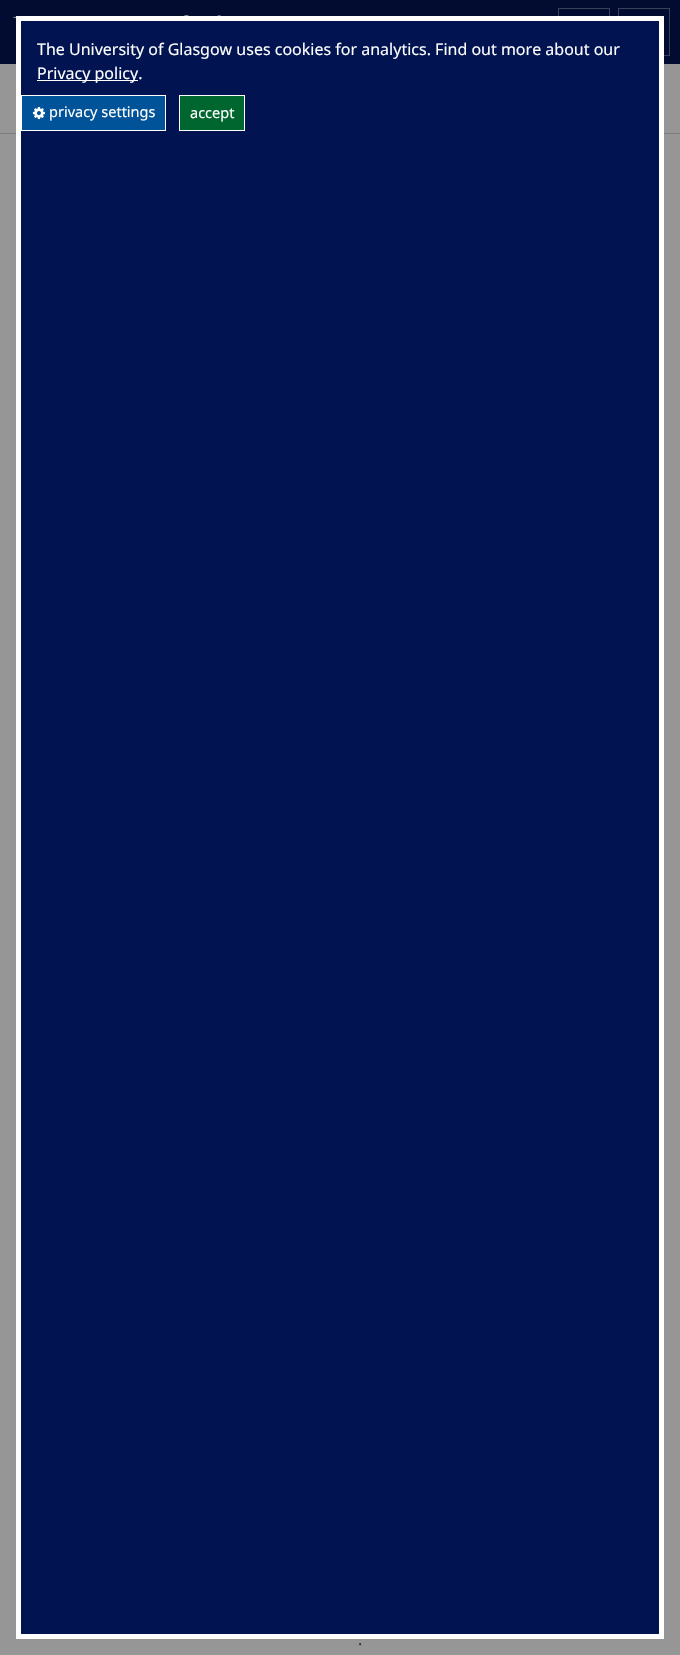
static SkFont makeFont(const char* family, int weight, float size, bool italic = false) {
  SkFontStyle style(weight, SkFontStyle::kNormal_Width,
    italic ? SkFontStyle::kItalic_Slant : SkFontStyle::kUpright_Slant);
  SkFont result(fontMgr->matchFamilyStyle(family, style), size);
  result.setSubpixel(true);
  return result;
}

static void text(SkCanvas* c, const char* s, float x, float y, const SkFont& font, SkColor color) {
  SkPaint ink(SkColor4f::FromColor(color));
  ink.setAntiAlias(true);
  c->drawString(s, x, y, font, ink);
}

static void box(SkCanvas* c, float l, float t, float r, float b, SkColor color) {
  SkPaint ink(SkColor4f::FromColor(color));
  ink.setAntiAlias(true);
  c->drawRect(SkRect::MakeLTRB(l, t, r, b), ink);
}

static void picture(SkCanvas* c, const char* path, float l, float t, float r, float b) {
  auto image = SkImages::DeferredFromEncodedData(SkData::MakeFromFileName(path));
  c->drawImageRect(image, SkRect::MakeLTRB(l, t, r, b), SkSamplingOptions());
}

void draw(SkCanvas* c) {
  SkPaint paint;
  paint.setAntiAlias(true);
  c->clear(0xffffffff);
  box(c, 0, 0, 680, 64, 0xff011451);
  picture(c, "img_02.png", 13, 15, 221, 19);
  paint.setStyle(SkPaint::kStroke_Style);
  paint.setStrokeWidth(1);
  paint.setColor(0xff626d93);
  c->drawRect(SkRect::MakeLTRB(558.5f, 8.5f, 609.5f, 55.5f), paint);
  c->drawRect(SkRect::MakeLTRB(618.5f, 8.5f, 669.5f, 55.5f), paint);
  box(c, 0, 133, 680, 134, 0xffd3d3d3);
  paint.setStyle(SkPaint::kFill_Style);
  paint.setColor(0x69000000);
  paint.setMaskFilter(SkMaskFilter::MakeBlur(kNormal_SkBlurStyle, 9.5f));
  c->drawRect(SkRect::MakeLTRB(-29, -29, 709, 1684), paint);
  paint.setMaskFilter(nullptr);
  paint.setColor(0xff011451);
  c->drawRect(SkRect::MakeLTRB(18.5f, 18.5f, 661.5f, 1636.5f), paint);
  paint.setStyle(SkPaint::kStroke_Style);
  paint.setStrokeWidth(5);
  paint.setColor(0xffffffff);
  c->drawRect(SkRect::MakeLTRB(18.5f, 18.5f, 661.5f, 1636.5f), paint);
  SkFont face1 = makeFont("Noto Sans", 400, 16);
  text(c, "The University of Glasgow uses cookies for analytics. Find out more about our", 37, 55, face1, 0xffffffff);
  box(c, 37, 80, 138, 81, 0xffffffff);
  text(c, "Privacy policy.", 37, 79, face1, 0xffffffff);
  paint.setStyle(SkPaint::kFill_Style);
  paint.setColor(0xff005398);
  c->drawRect(SkRect::MakeLTRB(21.5f, 95.5f, 165.5f, 130.5f), paint);
  paint.setStyle(SkPaint::kStroke_Style);
  paint.setStrokeWidth(1);
  paint.setColor(0xffffffff);
  c->drawRect(SkRect::MakeLTRB(21.5f, 95.5f, 165.5f, 130.5f), paint);
  picture(c, "img_01.png", 32, 107, 45, 120);
  SkFont face2 = makeFont("Noto Sans", 400, 14.5f);
  text(c, "privacy settings", 49, 117, face2, 0xffffffff);
  paint.setStyle(SkPaint::kFill_Style);
  paint.setColor(0xff006630);
  c->drawRect(SkRect::MakeLTRB(179.5f, 95.5f, 244.5f, 130.5f), paint);
  paint.setStyle(SkPaint::kStroke_Style);
  paint.setColor(0xffffffff);
  c->drawRect(SkRect::MakeLTRB(179.5f, 95.5f, 244.5f, 130.5f), paint);
  text(c, "accept", 190, 118, face2, 0xffffffff);
  text(c, ".", 358, 1645, face1, 0xff343536);
}
